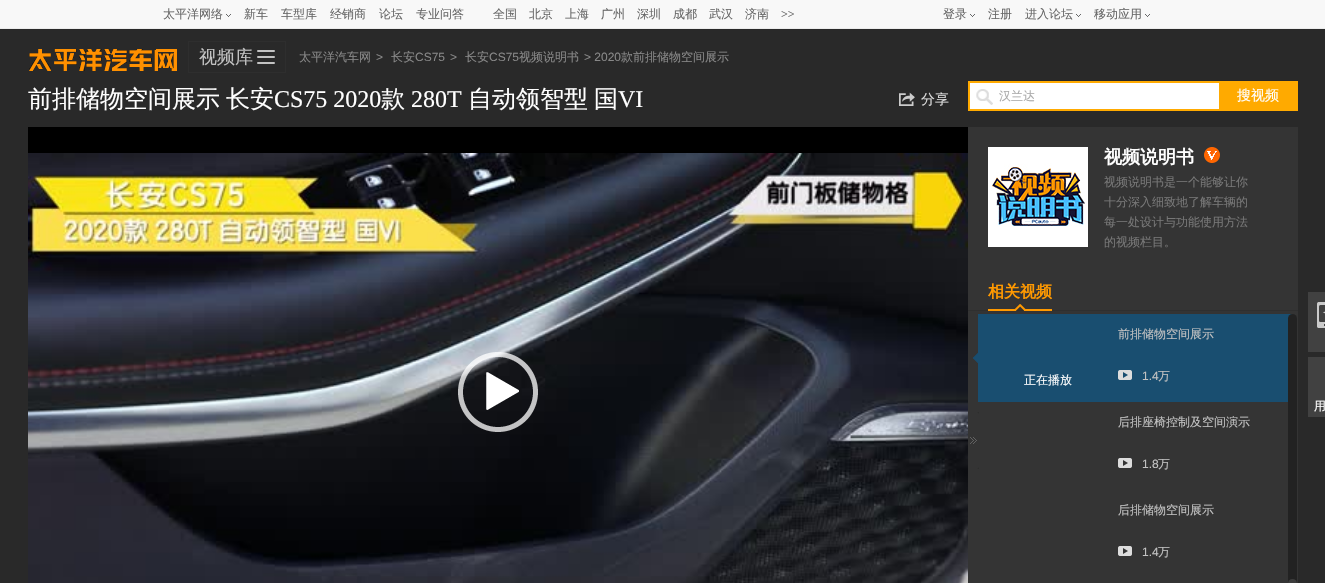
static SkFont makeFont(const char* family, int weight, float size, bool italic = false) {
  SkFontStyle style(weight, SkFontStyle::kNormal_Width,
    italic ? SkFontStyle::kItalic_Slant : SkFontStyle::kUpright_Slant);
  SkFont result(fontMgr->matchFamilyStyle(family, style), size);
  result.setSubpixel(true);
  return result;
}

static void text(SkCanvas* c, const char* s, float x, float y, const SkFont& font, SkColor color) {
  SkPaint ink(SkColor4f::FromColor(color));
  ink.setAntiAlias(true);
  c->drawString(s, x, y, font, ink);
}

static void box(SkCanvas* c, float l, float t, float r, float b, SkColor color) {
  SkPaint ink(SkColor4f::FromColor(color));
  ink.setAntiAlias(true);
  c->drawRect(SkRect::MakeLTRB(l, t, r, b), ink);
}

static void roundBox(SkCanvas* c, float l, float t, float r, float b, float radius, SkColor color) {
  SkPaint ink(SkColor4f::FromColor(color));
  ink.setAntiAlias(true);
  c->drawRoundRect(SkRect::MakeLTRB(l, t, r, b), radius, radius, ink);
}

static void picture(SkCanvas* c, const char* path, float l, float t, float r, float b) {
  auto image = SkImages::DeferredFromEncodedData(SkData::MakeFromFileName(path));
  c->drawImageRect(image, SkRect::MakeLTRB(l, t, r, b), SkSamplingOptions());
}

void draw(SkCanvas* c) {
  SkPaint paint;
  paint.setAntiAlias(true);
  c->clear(0xff292929);
  box(c, 0, 0, 1325, 28, 0xfff8f8f8);
  box(c, 0, 28, 1325, 29, 0xffececec);
  SkFont face1 = makeFont("WenQuanYi Zen Hei", 500, 12);
  text(c, "太平洋网络", 163, 18, face1, 0xff666666);
  picture(c, "img_01.png", 226, 14, 231, 17);
  text(c, "新车", 244, 18, face1, 0xff666666);
  text(c, "车型库", 281, 18, face1, 0xff666666);
  text(c, "经销商", 330, 18, face1, 0xff666666);
  text(c, "论坛", 379, 18, face1, 0xff666666);
  text(c, "专业问答", 416, 18, face1, 0xff666666);
  text(c, "全国", 493, 18, face1, 0xff666666);
  text(c, "北京", 529, 18, face1, 0xff666666);
  text(c, "上海", 565, 18, face1, 0xff666666);
  text(c, "广州", 601, 18, face1, 0xff666666);
  text(c, "深圳", 637, 18, face1, 0xff666666);
  text(c, "成都", 673, 18, face1, 0xff666666);
  text(c, "武汉", 709, 18, face1, 0xff666666);
  text(c, "济南", 745, 18, face1, 0xff666666);
  SkFont face2 = makeFont("Liberation Serif", 400, 12);
  text(c, ">>", 781, 18, face2, 0xff666666);
  text(c, "登录", 943, 18, face1, 0xff666666);
  picture(c, "img_01.png", 970, 14, 975, 17);
  text(c, "注册", 988, 18, face1, 0xff666666);
  text(c, "进入论坛", 1025, 18, face1, 0xff666666);
  picture(c, "img_01.png", 1076, 14, 1081, 17);
  text(c, "移动应用", 1094, 18, face1, 0xff666666);
  picture(c, "img_01.png", 1145, 14, 1150, 17);
  picture(c, "img_02.png", 29, 49, 177, 71);
  paint.setStyle(SkPaint::kStroke_Style);
  paint.setStrokeWidth(1);
  paint.setColor(0xff2e2e2e);
  c->drawRect(SkRect::MakeLTRB(188.5f, 41.5f, 285.5f, 72.5f), paint);
  SkFont face3 = makeFont("WenQuanYi Zen Hei", 500, 18);
  text(c, "视频库", 199, 63, face3, 0xffc2c2c2);
  roundBox(c, 257, 50, 275, 52, 1, 0xffc2c2c2);
  roundBox(c, 257, 56, 275, 58, 1, 0xffc2c2c2);
  roundBox(c, 257, 62, 275, 64, 1, 0xffc2c2c2);
  text(c, "太平洋汽车网", 299, 61, face1, 0xff888888);
  SkFont face4 = makeFont("Liberation Sans", 400, 12);
  text(c, ">", 376, 61, face4, 0xff888888);
  text(c, "长安", 391, 61, face1, 0xff888888);
  text(c, "CS75", 415, 61, face4, 0xff888888);
  text(c, ">", 450, 61, face4, 0xff888888);
  text(c, "长安", 465, 61, face1, 0xff888888);
  text(c, "CS75", 489, 61, face4, 0xff888888);
  text(c, "视频说明书", 519, 61, face1, 0xff888888);
  text(c, "> 2020", 584, 61, face4, 0xff888888);
  text(c, "款前排储物空间展示", 621, 61, face1, 0xff888888);
  SkFont face5 = makeFont("WenQuanYi Zen Hei", 500, 24);
  text(c, "前排储物空间展示", 28, 107, face5, 0xffffffff);
  text(c, "长安", 226, 107, face5, 0xffffffff);
  SkFont face6 = makeFont("Liberation Serif", 400, 24);
  text(c, "CS75 2020", 274, 107, face6, 0xffffffff);
  text(c, "款", 381, 107, face5, 0xffffffff);
  text(c, "280T", 411, 107, face6, 0xffffffff);
  text(c, "自动领智型", 468, 107, face5, 0xffffffff);
  text(c, "国", 594, 107, face5, 0xffffffff);
  text(c, "VI", 618, 107, face6, 0xffffffff);
  picture(c, "img_03.png", 899, 92, 915, 106);
  SkFont face7 = makeFont("WenQuanYi Zen Hei", 500, 14);
  text(c, "分享", 921, 104, face7, 0xffdddddd);
  box(c, 968, 81, 1298, 111, 0xffffaa00);
  box(c, 970, 83, 1219, 109, 0xffffffff);
  picture(c, "img_04.png", 976, 89, 993, 105);
  text(c, "汉兰达", 999, 100, face1, 0xffaaaaaa);
  text(c, "搜视频", 1237, 100, face7, 0xffffffff);
  box(c, 28, 127, 968, 153, 0xff000000);
  picture(c, "img_05.png", 28, 153, 968, 157);
  picture(c, "img_06.png", 28, 157, 968, 583);
  picture(c, "img_07.png", 458, 352, 538, 432);
  box(c, 968, 127, 1298, 583, 0xff343434);
  picture(c, "img_08.png", 970, 412, 979, 469);
  picture(c, "img_09.png", 988, 147, 1088, 247);
  SkFont face8 = makeFont("WenQuanYi Zen Hei", 700, 18);
  text(c, "视频说明书", 1104, 163, face8, 0xffffffff);
  picture(c, "img_10.png", 1204, 147, 1220, 163);
  text(c, "视频说明书是一个能够让你", 1104, 186, face1, 0xff777777);
  text(c, "十分深入细致地了解车辆的", 1104, 206, face1, 0xff777777);
  text(c, "每一处设计与功能使用方法", 1104, 226, face1, 0xff777777);
  text(c, "的视频栏目。", 1104, 246, face1, 0xff777777);
  box(c, 968, 310, 1298, 311, 0xff2f2f2f);
  picture(c, "img_11.png", 988, 304, 1052, 311);
  SkFont face9 = makeFont("WenQuanYi Zen Hei", 700, 16);
  text(c, "相关视频", 988, 297, face9, 0xffff9900);
  box(c, 978, 314, 1293, 402, 0xff194e70);
  picture(c, "img_12.png", 973, 314, 978, 402);
  text(c, "正在播放", 1024, 384, face1, 0xffffffff);
  text(c, "前排储物空间展示", 1118, 338, face1, 0xffc2c2c2);
  picture(c, "img_13.png", 1118, 370, 1132, 380);
  text(c, "1.4", 1142, 380, face4, 0xffc2c2c2);
  text(c, "万", 1158, 380, face1, 0xffc2c2c2);
  text(c, "后排座椅控制及空间演示", 1118, 426, face1, 0xffc2c2c2);
  picture(c, "img_14.png", 1118, 458, 1132, 468);
  text(c, "1.8", 1142, 468, face4, 0xffc2c2c2);
  text(c, "万", 1158, 468, face1, 0xffc2c2c2);
  text(c, "后排储物空间展示", 1118, 514, face1, 0xffc2c2c2);
  picture(c, "img_14.png", 1118, 546, 1132, 556);
  text(c, "1.4", 1142, 556, face4, 0xffc2c2c2);
  text(c, "万", 1158, 556, face1, 0xffc2c2c2);
  roundBox(c, 1288, 314, 1297, 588, 4.5f, 0xff222222);
  paint.setStyle(SkPaint::kFill_Style);
  paint.setColor(0xff3d3d3d);
  c->drawCircle(1292.5f, 583.5f, 4.5f, paint);
  box(c, 1308, 292, 1325, 352, 0xff414141);
  picture(c, "img_15.png", 1317, 302, 1325, 328);
  box(c, 1308, 357, 1325, 417, 0xff414141);
  text(c, "用", 1314, 410, face1, 0xffffffff);
}
